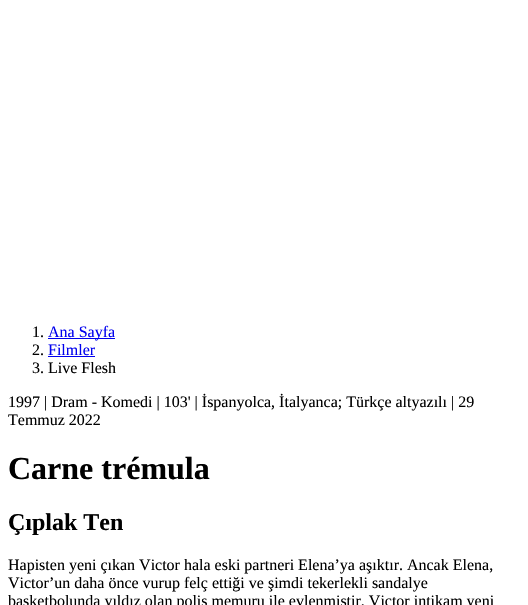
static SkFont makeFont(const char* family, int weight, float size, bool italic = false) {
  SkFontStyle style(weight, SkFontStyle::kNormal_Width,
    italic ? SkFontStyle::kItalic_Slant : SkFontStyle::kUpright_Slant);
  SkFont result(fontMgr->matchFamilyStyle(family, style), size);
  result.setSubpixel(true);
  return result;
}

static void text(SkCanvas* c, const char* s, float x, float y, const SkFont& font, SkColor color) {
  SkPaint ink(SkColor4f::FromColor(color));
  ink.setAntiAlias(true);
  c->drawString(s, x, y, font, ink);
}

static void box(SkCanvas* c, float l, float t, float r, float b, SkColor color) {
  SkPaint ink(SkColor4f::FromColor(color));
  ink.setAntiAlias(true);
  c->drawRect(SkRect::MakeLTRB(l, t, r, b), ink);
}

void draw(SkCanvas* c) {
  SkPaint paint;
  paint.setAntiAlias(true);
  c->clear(0xffffffff);
  SkFont face1 = makeFont("Liberation Serif", 400, 16);
  text(c, "1.", 32, 337, face1, 0xff000000);
  box(c, 48, 338, 115, 339, 0xff0000ee);
  text(c, "Ana Sayfa", 48, 337, face1, 0xff0000ee);
  text(c, "2.", 32, 355, face1, 0xff000000);
  text(c, "Filmler", 48, 355, face1, 0xff0000ee);
  box(c, 48, 356, 95, 357, 0xff0000ee);
  text(c, "3. Live Flesh", 32, 373, face1, 0xff000000);
  text(c, "1997 | Dram - Komedi | 103' | İspanyolca, İtalyanca; Türkçe altyazılı | 29", 8, 407, face1, 0xff000000);
  text(c, "Temmuz 2022", 8, 425, face1, 0xff000000);
  SkFont face2 = makeFont("Liberation Serif", 700, 32);
  text(c, "Carne trémula", 8, 479, face2, 0xff000000);
  SkFont face3 = makeFont("Liberation Serif", 700, 24);
  text(c, "Çıplak Ten", 8, 530, face3, 0xff000000);
  text(c, "Hapisten yeni çıkan Victor hala eski partneri Elena’ya aşıktır. Ancak Elena,", 8, 570, face1, 0xff000000);
  text(c, "Victor’un daha önce vurup felç ettiği ve şimdi tekerlekli sandalye", 8, 588, face1, 0xff000000);
  text(c, "basketbolunda yıldız olan polis memuru ile evlenmiştir. Victor intikam yeni", 8, 606, face1, 0xff000000);
}
